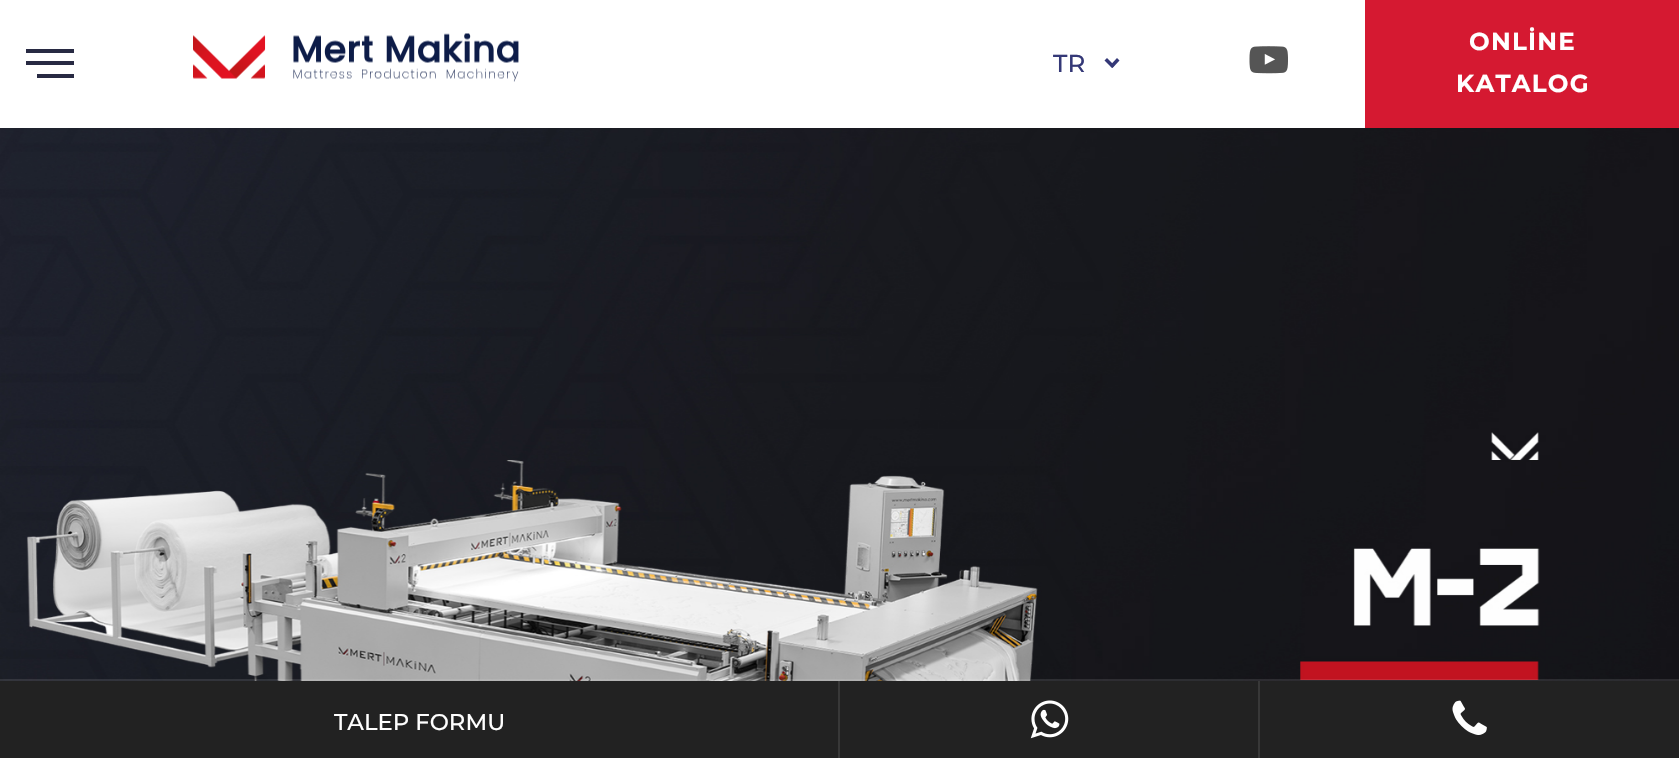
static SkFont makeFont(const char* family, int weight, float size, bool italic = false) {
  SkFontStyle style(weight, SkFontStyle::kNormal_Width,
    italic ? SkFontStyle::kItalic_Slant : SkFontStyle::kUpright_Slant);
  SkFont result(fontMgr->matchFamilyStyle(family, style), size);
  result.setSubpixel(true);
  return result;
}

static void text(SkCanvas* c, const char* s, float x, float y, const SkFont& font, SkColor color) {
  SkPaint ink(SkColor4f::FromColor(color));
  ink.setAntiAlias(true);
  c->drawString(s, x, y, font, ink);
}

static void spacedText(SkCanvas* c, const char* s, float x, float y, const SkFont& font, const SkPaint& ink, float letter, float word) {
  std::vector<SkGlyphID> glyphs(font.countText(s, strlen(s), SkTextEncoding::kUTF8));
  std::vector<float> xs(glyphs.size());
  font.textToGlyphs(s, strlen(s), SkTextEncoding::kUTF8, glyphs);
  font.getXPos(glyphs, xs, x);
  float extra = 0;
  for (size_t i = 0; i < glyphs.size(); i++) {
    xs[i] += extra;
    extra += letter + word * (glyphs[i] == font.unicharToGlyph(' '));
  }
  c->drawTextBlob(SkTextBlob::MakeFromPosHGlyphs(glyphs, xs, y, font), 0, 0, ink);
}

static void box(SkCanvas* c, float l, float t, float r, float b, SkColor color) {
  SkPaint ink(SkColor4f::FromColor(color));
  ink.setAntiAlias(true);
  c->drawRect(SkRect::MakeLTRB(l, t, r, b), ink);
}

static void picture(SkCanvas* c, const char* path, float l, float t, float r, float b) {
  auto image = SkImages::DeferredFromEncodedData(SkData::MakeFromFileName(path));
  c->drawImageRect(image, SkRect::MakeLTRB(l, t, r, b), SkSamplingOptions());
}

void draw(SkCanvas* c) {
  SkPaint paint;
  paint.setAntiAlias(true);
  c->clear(0xffffffff);
  box(c, 26, 49, 74, 53, 0xff282a43);
  box(c, 26, 61, 74, 65, 0xff282a43);
  box(c, 37, 74, 74, 78, 0xff282a43);
  picture(c, "img_01.png", 193, 33, 519, 82);
  SkFont face1 = makeFont("Montserrat", 500, 24.5f);
  text(c, "TR", 1053, 72, face1, 0xff343877);
  paint.setColor(0xff343877);
  c->drawPath(SkPathBuilder().moveTo(1107, 58).lineTo(1114.5f, 65.5f).lineTo(1112, 68).lineTo(1104.5f, 60.5f).close().detach(), paint);
  c->drawPath(SkPathBuilder().moveTo(1110, 65.5f).lineTo(1117, 58).lineTo(1119.5f, 60.5f).lineTo(1112.5f, 68).close().detach(), paint);
  picture(c, "img_02.png", 1249, 46, 1288, 74);
  box(c, 1365, 0, 1679, 128, 0xffd51931);
  SkFont face2 = makeFont("Montserrat", 700, 24.5f);
  paint.setColor(0xffffffff);
  spacedText(c, "ONLİNE", 1469, 50, face2, paint, 1.25f, 0);
  spacedText(c, "KATALOG", 1456, 92, face2, paint, 1.25f, 0);
  picture(c, "img_03.png", 0, 128, 1679, 681);
  box(c, 0, 679, 840, 681, 0x1affffff);
  box(c, 0, 681, 838, 758, 0xff222222);
  box(c, 838, 681, 840, 758, 0xff383838);
  SkFont face3 = makeFont("Montserrat", 500, 22.75f);
  text(c, "TALEP FORMU", 334, 730, face3, 0xffffffff);
  box(c, 840, 679, 1679, 681, 0x1affffff);
  box(c, 840, 681, 1258, 758, 0xff222222);
  box(c, 1258, 681, 1260, 758, 0xff383838);
  picture(c, "img_04.png", 1030, 700, 1069, 739);
  box(c, 1260, 681, 1679, 758, 0xff222222);
  picture(c, "img_05.png", 1452, 700, 1487, 735);
}
